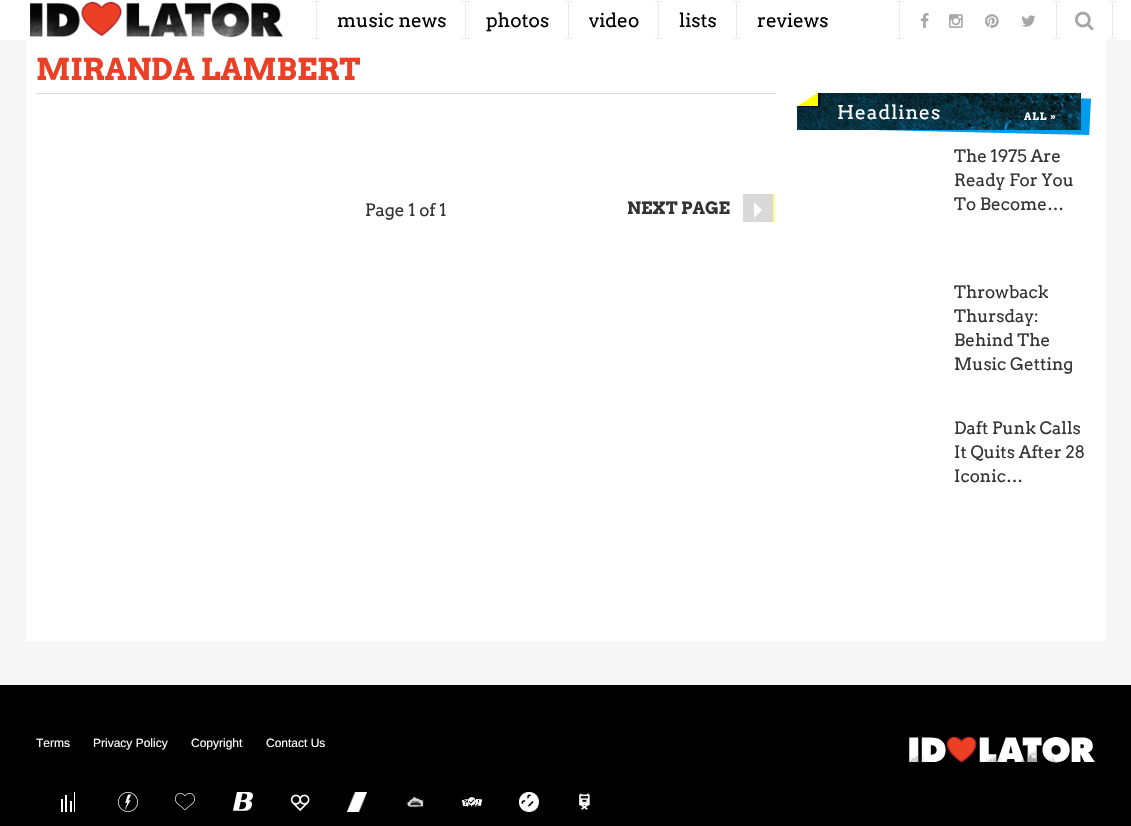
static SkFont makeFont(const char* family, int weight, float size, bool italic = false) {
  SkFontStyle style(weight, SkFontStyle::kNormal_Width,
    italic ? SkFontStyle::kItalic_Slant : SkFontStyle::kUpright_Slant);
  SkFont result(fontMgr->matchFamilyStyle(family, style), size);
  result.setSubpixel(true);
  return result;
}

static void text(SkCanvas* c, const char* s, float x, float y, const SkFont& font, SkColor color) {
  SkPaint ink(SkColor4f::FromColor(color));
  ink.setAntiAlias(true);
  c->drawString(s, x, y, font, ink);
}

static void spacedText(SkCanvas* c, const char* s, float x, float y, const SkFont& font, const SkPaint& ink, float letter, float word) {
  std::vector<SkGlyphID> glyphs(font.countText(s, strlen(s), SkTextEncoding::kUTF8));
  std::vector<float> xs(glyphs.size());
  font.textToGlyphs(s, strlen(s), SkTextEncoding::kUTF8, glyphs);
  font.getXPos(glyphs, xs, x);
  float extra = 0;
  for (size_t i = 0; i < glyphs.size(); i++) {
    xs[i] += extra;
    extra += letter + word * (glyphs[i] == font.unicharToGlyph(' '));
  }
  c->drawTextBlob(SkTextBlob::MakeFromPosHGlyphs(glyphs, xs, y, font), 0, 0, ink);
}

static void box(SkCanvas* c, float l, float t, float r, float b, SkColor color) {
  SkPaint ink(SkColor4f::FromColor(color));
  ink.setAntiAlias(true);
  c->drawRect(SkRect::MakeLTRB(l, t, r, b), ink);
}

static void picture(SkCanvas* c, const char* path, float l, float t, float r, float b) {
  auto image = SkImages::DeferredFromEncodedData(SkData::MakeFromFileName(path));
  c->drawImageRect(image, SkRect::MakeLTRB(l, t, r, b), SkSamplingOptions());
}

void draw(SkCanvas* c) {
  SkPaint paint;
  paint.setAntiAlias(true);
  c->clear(0xfff6f6f6);
  box(c, 0, 0, 1131, 40, 0xffffffff);
  picture(c, "img_01.png", 30, 1, 283, 38);
  picture(c, "img_02.png", 313, 1, 320, 39);
  SkFont face1 = makeFont("Arvo", 400, 19);
  text(c, "music news", 337, 27, face1, 0xff000000);
  picture(c, "img_02.png", 462, 1, 469, 39);
  text(c, "photos", 486, 27, face1, 0xff000000);
  picture(c, "img_02.png", 565, 1, 572, 39);
  text(c, "video", 589, 27, face1, 0xff000000);
  picture(c, "img_02.png", 655, 1, 662, 39);
  text(c, "lists", 679, 27, face1, 0xff000000);
  picture(c, "img_02.png", 733, 1, 740, 39);
  text(c, "reviews", 757, 27, face1, 0xff000000);
  picture(c, "img_02.png", 896, 1, 903, 39);
  picture(c, "img_03.png", 920, 13, 929, 28);
  picture(c, "img_04.png", 949, 14, 963, 28);
  picture(c, "img_05.png", 985, 14, 999, 28);
  picture(c, "img_06.png", 1021, 15, 1036, 27);
  picture(c, "img_02.png", 1053, 1, 1060, 39);
  picture(c, "img_07.png", 1075, 11, 1094, 31);
  picture(c, "img_02.png", 1109, 1, 1116, 39);
  box(c, 26, 40, 1106, 641, 0xffffffff);
  box(c, 36, 93, 776, 94, 0xffd7d7d7);
  SkFont face2 = makeFont("Arvo", 700, 30);
  text(c, "MIRANDA LAMBERT", 36, 80, face2, 0xffeb3f26);
  SkFont face3 = makeFont("Arvo", 400, 17);
  text(c, "Page 1 of 1", 365, 216, face3, 0xff333333);
  SkFont face4 = makeFont("Arvo", 700, 17);
  text(c, "NEXT PAGE", 627, 214, face4, 0xff333333);
  box(c, 743, 194, 773, 222, 0xffd9d9d9);
  box(c, 773, 194, 775, 222, 0xfffffd7f);
  paint.setColor(0xffffffff);
  c->drawPath(SkPathBuilder().moveTo(754, 218).lineTo(754, 202).lineTo(762, 210).close().detach(), paint);
  picture(c, "img_08.png", 796, 93, 1091, 135);
  spacedText(c, "Headlines", 837, 119, face1, paint, 1, 0);
  SkFont face5 = makeFont("Arvo", 700, 10);
  spacedText(c, "ALL »", 1024, 120, face5, paint, 1, 0);
  c->save();
  c->clipRect(SkRect::MakeLTRB(954, 145, 1096, 240));
  text(c, "The 1975 Are", 954, 162, face3, 0xff333333);
  c->restore();
  text(c, "Ready For You", 954, 186, face3, 0xff333333);
  c->save();
  c->clipRect(SkRect::MakeLTRB(954, 145, 1096, 240));
  text(c, "To Become…", 954, 210, face3, 0xff333333);
  c->restore();
  c->save();
  c->clipRect(SkRect::MakeLTRB(954, 281, 1096, 376));
  text(c, "Throwback", 954, 298, face3, 0xff333333);
  text(c, "Thursday:", 954, 322, face3, 0xff333333);
  c->restore();
  text(c, "Behind The", 954, 346, face3, 0xff333333);
  text(c, "Music Getting", 954, 370, face3, 0xff333333);
  text(c, "Daft Punk Calls", 954, 434, face3, 0xff333333);
  text(c, "It Quits After 28", 954, 458, face3, 0xff333333);
  text(c, "Iconic…", 954, 482, face3, 0xff333333);
  box(c, 0, 685, 1131, 826, 0xff000000);
  SkFont face6 = makeFont("Liberation Sans", 400, 12);
  text(c, "Terms", 36, 747, face6, 0xffffffff);
  text(c, "Privacy Policy", 93, 747, face6, 0xffffffff);
  text(c, "Copyright", 191, 747, face6, 0xffffffff);
  text(c, "Contact Us", 266, 747, face6, 0xffffffff);
  box(c, 61, 799, 63, 812, 0xffffffff);
  box(c, 65, 795, 67, 812, 0xffffffff);
  box(c, 74, 792, 75, 812, 0xffffffff);
  box(c, 70, 801, 72, 812, 0xffffffff);
  picture(c, "img_09.png", 118, 792, 138, 812);
  picture(c, "img_10.png", 175, 793, 195, 810);
  picture(c, "img_11.png", 233, 792, 253, 811);
  picture(c, "img_12.png", 290, 794, 310, 811);
  picture(c, "img_13.png", 347, 792, 367, 812);
  picture(c, "img_14.png", 406, 795, 425, 808);
  picture(c, "img_15.png", 462, 797, 482, 807);
  picture(c, "img_16.png", 519, 792, 539, 812);
  picture(c, "img_17.png", 579, 793, 590, 810);
  picture(c, "img_18.png", 909, 736, 1095, 763);
}
